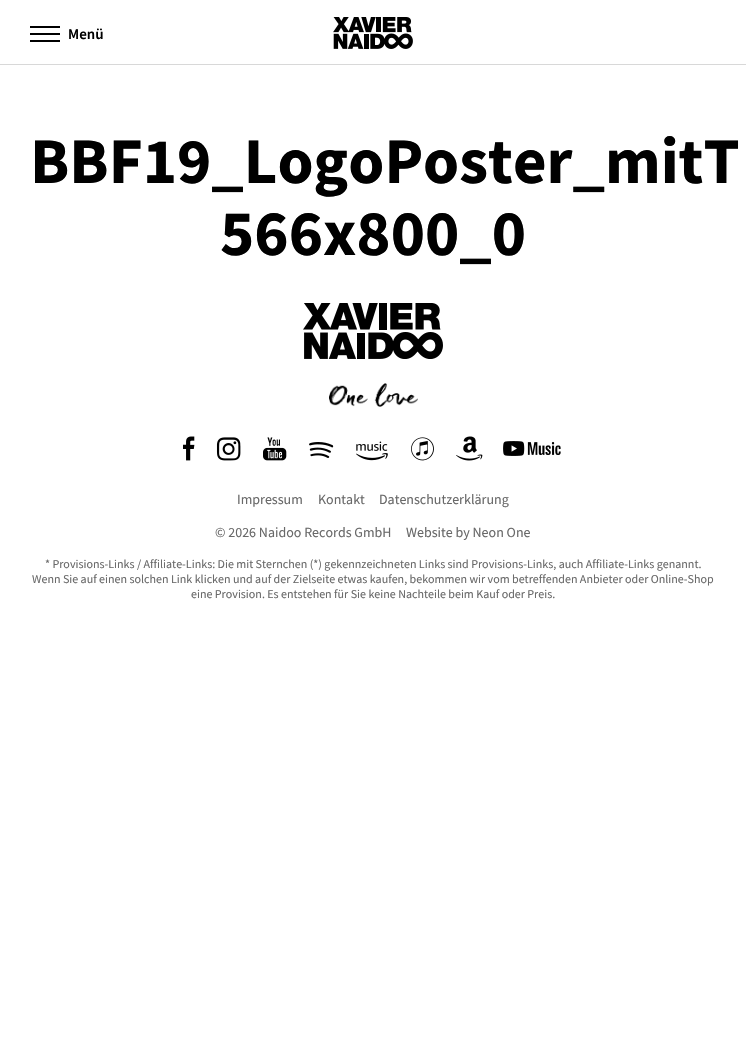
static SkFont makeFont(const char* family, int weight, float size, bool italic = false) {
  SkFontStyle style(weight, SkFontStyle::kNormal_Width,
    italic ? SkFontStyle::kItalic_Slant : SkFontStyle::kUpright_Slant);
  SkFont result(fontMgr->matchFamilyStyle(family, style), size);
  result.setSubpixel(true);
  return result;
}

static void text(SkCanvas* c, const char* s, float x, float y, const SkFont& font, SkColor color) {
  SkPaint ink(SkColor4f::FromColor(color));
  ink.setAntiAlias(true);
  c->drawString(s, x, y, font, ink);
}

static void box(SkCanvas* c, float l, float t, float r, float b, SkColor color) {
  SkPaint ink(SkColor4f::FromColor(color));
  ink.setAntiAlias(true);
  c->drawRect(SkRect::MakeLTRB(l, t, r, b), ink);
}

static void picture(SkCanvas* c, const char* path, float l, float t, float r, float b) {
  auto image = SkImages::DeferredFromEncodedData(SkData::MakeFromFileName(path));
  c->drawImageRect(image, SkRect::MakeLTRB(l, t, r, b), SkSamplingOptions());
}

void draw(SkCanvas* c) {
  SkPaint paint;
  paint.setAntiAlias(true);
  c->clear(0xffffffff);
  box(c, 0, 64, 746, 65, 0xffd8d8d8);
  box(c, 30, 26, 60, 28, 0xff000000);
  box(c, 30, 33, 60, 35, 0xff000000);
  box(c, 30, 40, 60, 42, 0xff000000);
  SkFont face1 = makeFont("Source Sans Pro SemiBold", 600, 15);
  text(c, "Menü", 68, 39, face1, 0xff000000);
  picture(c, "img_01.png", 333, 17, 413, 49);
  SkFont face2 = makeFont("Source Sans Pro", 700, 65);
  text(c, "BBF19_LogoPoster_mitT", 30, 183, face2, 0xff000000);
  text(c, "566x800_0", 220, 255, face2, 0xff000000);
  picture(c, "img_02.png", 303, 303, 443, 359);
  picture(c, "img_03.png", 329, 383, 418, 407);
  picture(c, "img_04.png", 183, 436, 195, 461);
  picture(c, "img_05.png", 216, 437, 241, 461);
  picture(c, "img_06.png", 263, 437, 287, 461);
  picture(c, "img_07.png", 309, 442, 334, 458);
  picture(c, "img_08.png", 356, 441, 388, 461);
  picture(c, "img_09.png", 411, 437, 434, 461);
  picture(c, "img_10.png", 456, 436, 483, 461);
  picture(c, "img_11.png", 503, 441, 561, 456);
  SkFont face3 = makeFont("Source Sans Pro", 400, 14);
  text(c, "Impressum", 237, 504, face3, 0xff696969);
  text(c, "Kontakt", 318, 504, face3, 0xff696969);
  text(c, "Datenschutzerklärung", 379, 504, face3, 0xff696969);
  text(c, "© 2026 Naidoo Records GmbH", 215, 537, face3, 0xff696969);
  text(c, "Website by Neon One", 406, 537, face3, 0xff696969);
  SkFont face4 = makeFont("Source Sans Pro", 400, 12);
  text(c, "* Provisions-Links / Affiliate-Links: Die mit Sternchen (*) gekennzeichneten Links sind Provisions-Links, auch Affiliate-Links genannt.", 45, 568, face4, 0xff696969);
  text(c, "Wenn Sie auf einen solchen Link klicken und auf der Zielseite etwas kaufen, bekommen wir vom betreffenden Anbieter oder Online-Shop", 32, 583, face4, 0xff696969);
  text(c, "eine Provision. Es entstehen für Sie keine Nachteile beim Kauf oder Preis.", 191, 598, face4, 0xff696969);
}
